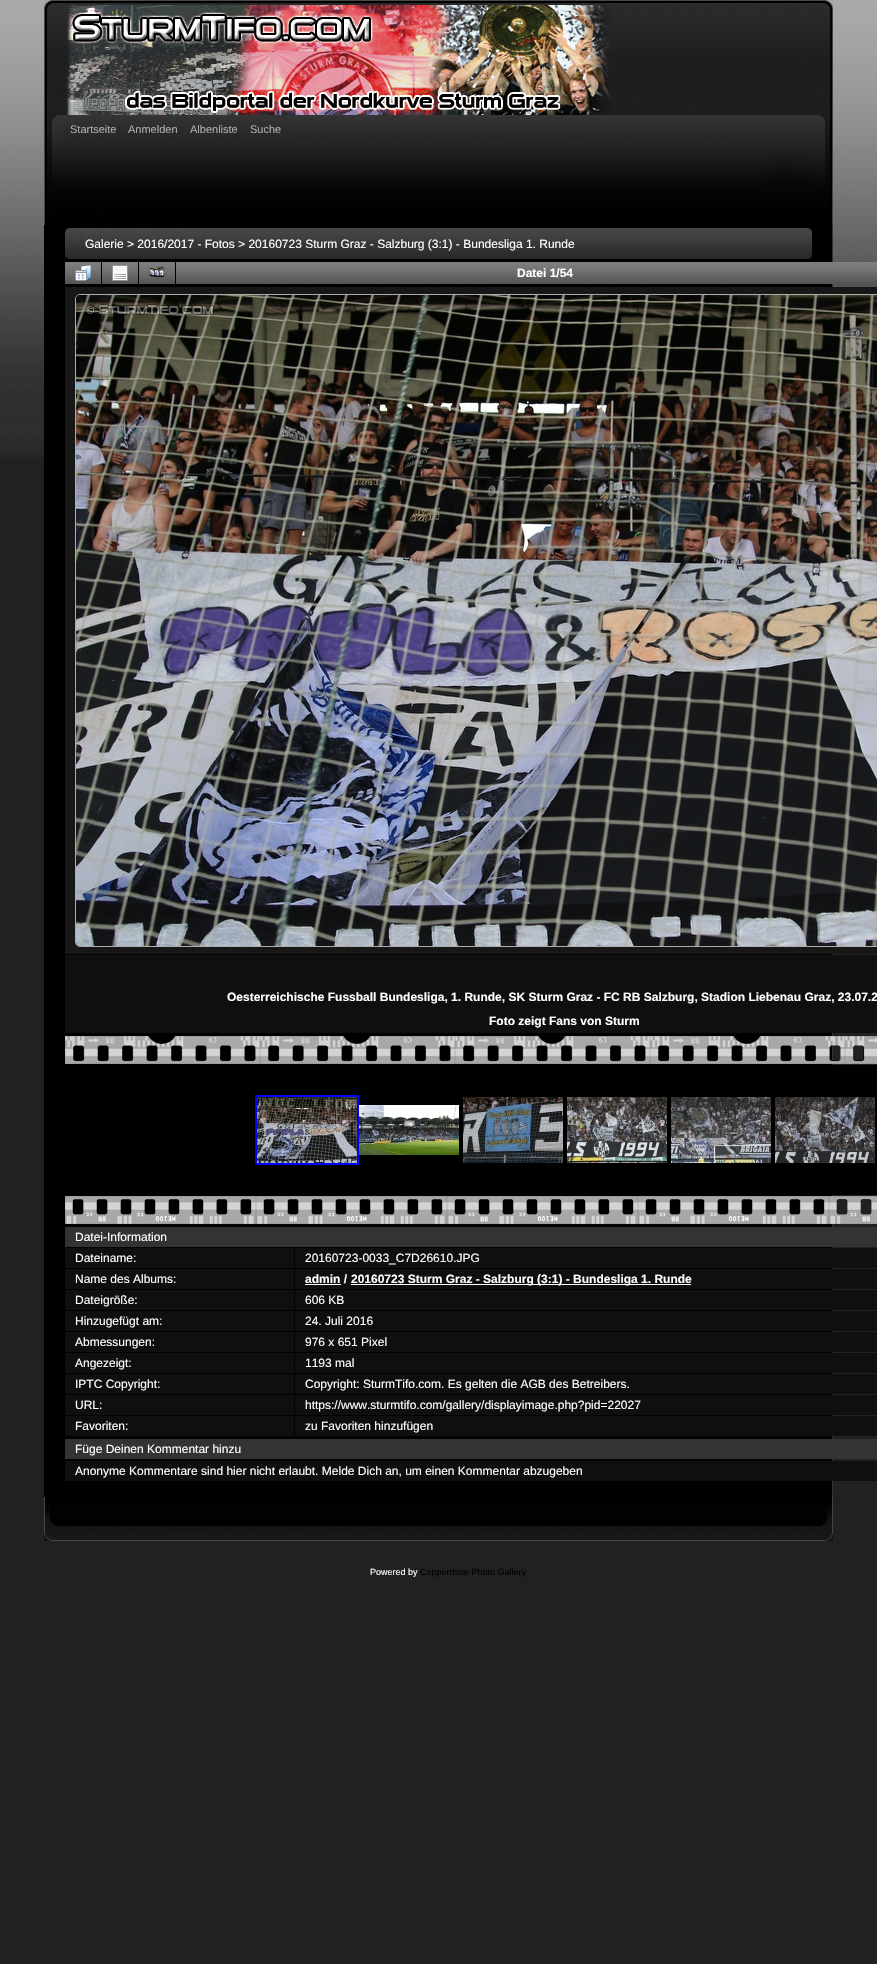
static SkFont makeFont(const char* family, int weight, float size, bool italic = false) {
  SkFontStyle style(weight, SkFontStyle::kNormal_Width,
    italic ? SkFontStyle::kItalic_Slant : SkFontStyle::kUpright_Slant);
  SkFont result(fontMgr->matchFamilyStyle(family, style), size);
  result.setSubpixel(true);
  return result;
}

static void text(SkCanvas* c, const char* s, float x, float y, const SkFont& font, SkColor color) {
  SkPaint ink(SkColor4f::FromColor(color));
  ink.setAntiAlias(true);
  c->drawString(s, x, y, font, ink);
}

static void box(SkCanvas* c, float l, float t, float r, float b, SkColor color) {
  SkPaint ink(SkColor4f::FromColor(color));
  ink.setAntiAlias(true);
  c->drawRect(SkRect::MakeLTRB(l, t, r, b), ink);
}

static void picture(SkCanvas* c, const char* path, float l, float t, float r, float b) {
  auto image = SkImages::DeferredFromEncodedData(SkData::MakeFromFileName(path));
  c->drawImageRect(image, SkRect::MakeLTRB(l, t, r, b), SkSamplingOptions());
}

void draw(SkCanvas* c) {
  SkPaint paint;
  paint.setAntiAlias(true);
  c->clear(0xff212121);
  picture(c, "img_01.png", 0, 0, 877, 458);
  picture(c, "img_02.png", 44, 0, 825, 115);
  picture(c, "img_03.png", 825, 0, 833, 115);
  picture(c, "img_04.png", 66, 5, 611, 115);
  picture(c, "img_05.png", 44, 115, 818, 225);
  picture(c, "img_06.png", 818, 115, 833, 225);
  SkFont face1 = makeFont("Liberation Sans", 400, 11);
  text(c, "Startseite", 70, 133, face1, 0xffadadad);
  text(c, "Anmelden", 128, 133, face1, 0xffadadad);
  text(c, "Albenliste", 190, 133, face1, 0xffadadad);
  text(c, "Suche", 250, 133, face1, 0xffadadad);
  box(c, 44, 225, 832, 1497, 0xff000000);
  box(c, 832, 225, 833, 1497, 0xff323232);
  picture(c, "img_07.png", 65, 228, 808, 259);
  picture(c, "img_08.png", 808, 228, 812, 259);
  SkFont face2 = makeFont("Liberation Sans", 400, 12);
  text(c, "Galerie > 2016/2017 - Fotos > 20160723 Sturm Graz - Salzburg (3:1) - Bundesliga 1. Runde", 85, 248, face2, 0xffffffff);
  picture(c, "img_09.png", 65, 262, 101, 284);
  picture(c, "img_10.png", 75, 265, 91, 281);
  picture(c, "img_09.png", 102, 262, 138, 284);
  picture(c, "img_11.png", 112, 265, 128, 281);
  picture(c, "img_09.png", 139, 262, 175, 284);
  picture(c, "img_12.png", 149, 266, 165, 278);
  picture(c, "img_13.png", 176, 262, 877, 284);
  SkFont face3 = makeFont("Liberation Sans", 700, 12);
  text(c, "Datei 1/54", 517, 277, face3, 0xffffffff);
  box(c, 65, 287, 877, 954, 0xff171717);
  paint.setStyle(SkPaint::kStroke_Style);
  paint.setStrokeWidth(1);
  paint.setColor(0xffadadad);
  c->drawRoundRect(SkRect::MakeLTRB(75.5f, 294.5f, 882.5f, 946.5f), 4.5f, 4.5f, paint);
  picture(c, "img_14.png", 76, 295, 877, 946);
  box(c, 65, 955, 877, 1033, 0xff0f0f0f);
  text(c, "Oesterreichische Fussball Bundesliga, 1. Runde, SK Sturm Graz - FC RB Salzburg, Stadion Liebenau Graz, 23.07.2", 227, 1001, face3, 0xffffffff);
  text(c, "Foto zeigt Fans von Sturm", 489, 1025, face3, 0xffffffff);
  picture(c, "img_15.png", 65, 1036, 877, 1064);
  box(c, 832, 1065, 877, 1195, 0xff000000);
  paint.setStrokeWidth(2);
  paint.setColor(0xff0000ff);
  c->drawRect(SkRect::MakeLTRB(256, 1096, 358, 1164), paint);
  picture(c, "img_16.png", 257, 1097, 357, 1163);
  picture(c, "img_17.png", 359, 1105, 459, 1155);
  picture(c, "img_18.png", 463, 1097, 563, 1163);
  picture(c, "img_19.png", 567, 1097, 667, 1163);
  picture(c, "img_20.png", 671, 1097, 771, 1163);
  picture(c, "img_21.png", 775, 1097, 875, 1163);
  picture(c, "img_22.png", 65, 1196, 877, 1224);
  box(c, 65, 1227, 877, 1247, 0xff333333);
  text(c, "Datei-Information", 75, 1241, face2, 0xffffffff);
  box(c, 65, 1248, 294, 1268, 0xff0f0f0f);
  text(c, "Dateiname:", 75, 1262, face2, 0xffffffff);
  box(c, 295, 1248, 877, 1268, 0xff0f0f0f);
  text(c, "20160723-0033_C7D26610.JPG", 305, 1262, face2, 0xffffffff);
  box(c, 65, 1269, 294, 1289, 0xff0f0f0f);
  text(c, "Name des Albums:", 75, 1283, face2, 0xffffffff);
  box(c, 295, 1269, 877, 1289, 0xff0f0f0f);
  text(c, "admin /", 305, 1283, face3, 0xffffffff);
  box(c, 305, 1284, 341, 1285, 0xffffffff);
  box(c, 351, 1284, 691, 1285, 0xffffffff);
  text(c, "20160723 Sturm Graz - Salzburg (3:1) - Bundesliga 1. Runde", 351, 1283, face3, 0xffffffff);
  box(c, 65, 1290, 294, 1310, 0xff0f0f0f);
  text(c, "Dateigröße:", 75, 1304, face2, 0xffffffff);
  box(c, 295, 1290, 877, 1310, 0xff0f0f0f);
  text(c, "606 KB", 305, 1304, face2, 0xffffffff);
  box(c, 65, 1311, 294, 1331, 0xff0f0f0f);
  text(c, "Hinzugefügt am:", 75, 1325, face2, 0xffffffff);
  box(c, 295, 1311, 877, 1331, 0xff0f0f0f);
  text(c, "24. Juli 2016", 305, 1325, face2, 0xffffffff);
  box(c, 65, 1332, 294, 1352, 0xff0f0f0f);
  text(c, "Abmessungen:", 75, 1346, face2, 0xffffffff);
  box(c, 295, 1332, 877, 1352, 0xff0f0f0f);
  text(c, "976 x 651 Pixel", 305, 1346, face2, 0xffffffff);
  box(c, 65, 1353, 294, 1373, 0xff0f0f0f);
  text(c, "Angezeigt:", 75, 1367, face2, 0xffffffff);
  box(c, 295, 1353, 877, 1373, 0xff0f0f0f);
  text(c, "1193 mal", 305, 1367, face2, 0xffffffff);
  box(c, 65, 1374, 294, 1394, 0xff0f0f0f);
  text(c, "IPTC Copyright:", 75, 1388, face2, 0xffffffff);
  box(c, 295, 1374, 877, 1394, 0xff0f0f0f);
  text(c, "Copyright: SturmTifo.com. Es gelten die AGB des Betreibers.", 305, 1388, face2, 0xffffffff);
  box(c, 65, 1395, 294, 1415, 0xff0f0f0f);
  text(c, "URL:", 75, 1409, face2, 0xffffffff);
  box(c, 295, 1395, 877, 1415, 0xff0f0f0f);
  text(c, "https://www.sturmtifo.com/gallery/displayimage.php?pid=22027", 305, 1409, face2, 0xffffffff);
  box(c, 65, 1416, 294, 1436, 0xff0f0f0f);
  text(c, "Favoriten:", 75, 1430, face2, 0xffffffff);
  box(c, 295, 1416, 877, 1436, 0xff0f0f0f);
  text(c, "zu Favoriten hinzufügen", 305, 1430, face2, 0xffffffff);
  box(c, 65, 1439, 877, 1459, 0xff333333);
  text(c, "Füge Deinen Kommentar hinzu", 75, 1453, face2, 0xffffffff);
  box(c, 65, 1461, 877, 1481, 0xff0f0f0f);
  text(c, "Anonyme Kommentare sind hier nicht erlaubt. Melde Dich an, um einen Kommentar abzugeben", 75, 1475, face2, 0xffffffff);
  picture(c, "img_23.png", 44, 1497, 821, 1541);
  picture(c, "img_24.png", 821, 1497, 833, 1541);
  SkFont face4 = makeFont("Liberation Sans", 400, 9);
  text(c, "Powered by", 370, 1575, face4, 0xffffffff);
  text(c, "Coppermine Photo Gallery", 420, 1575, face4, 0xff000000);
}
